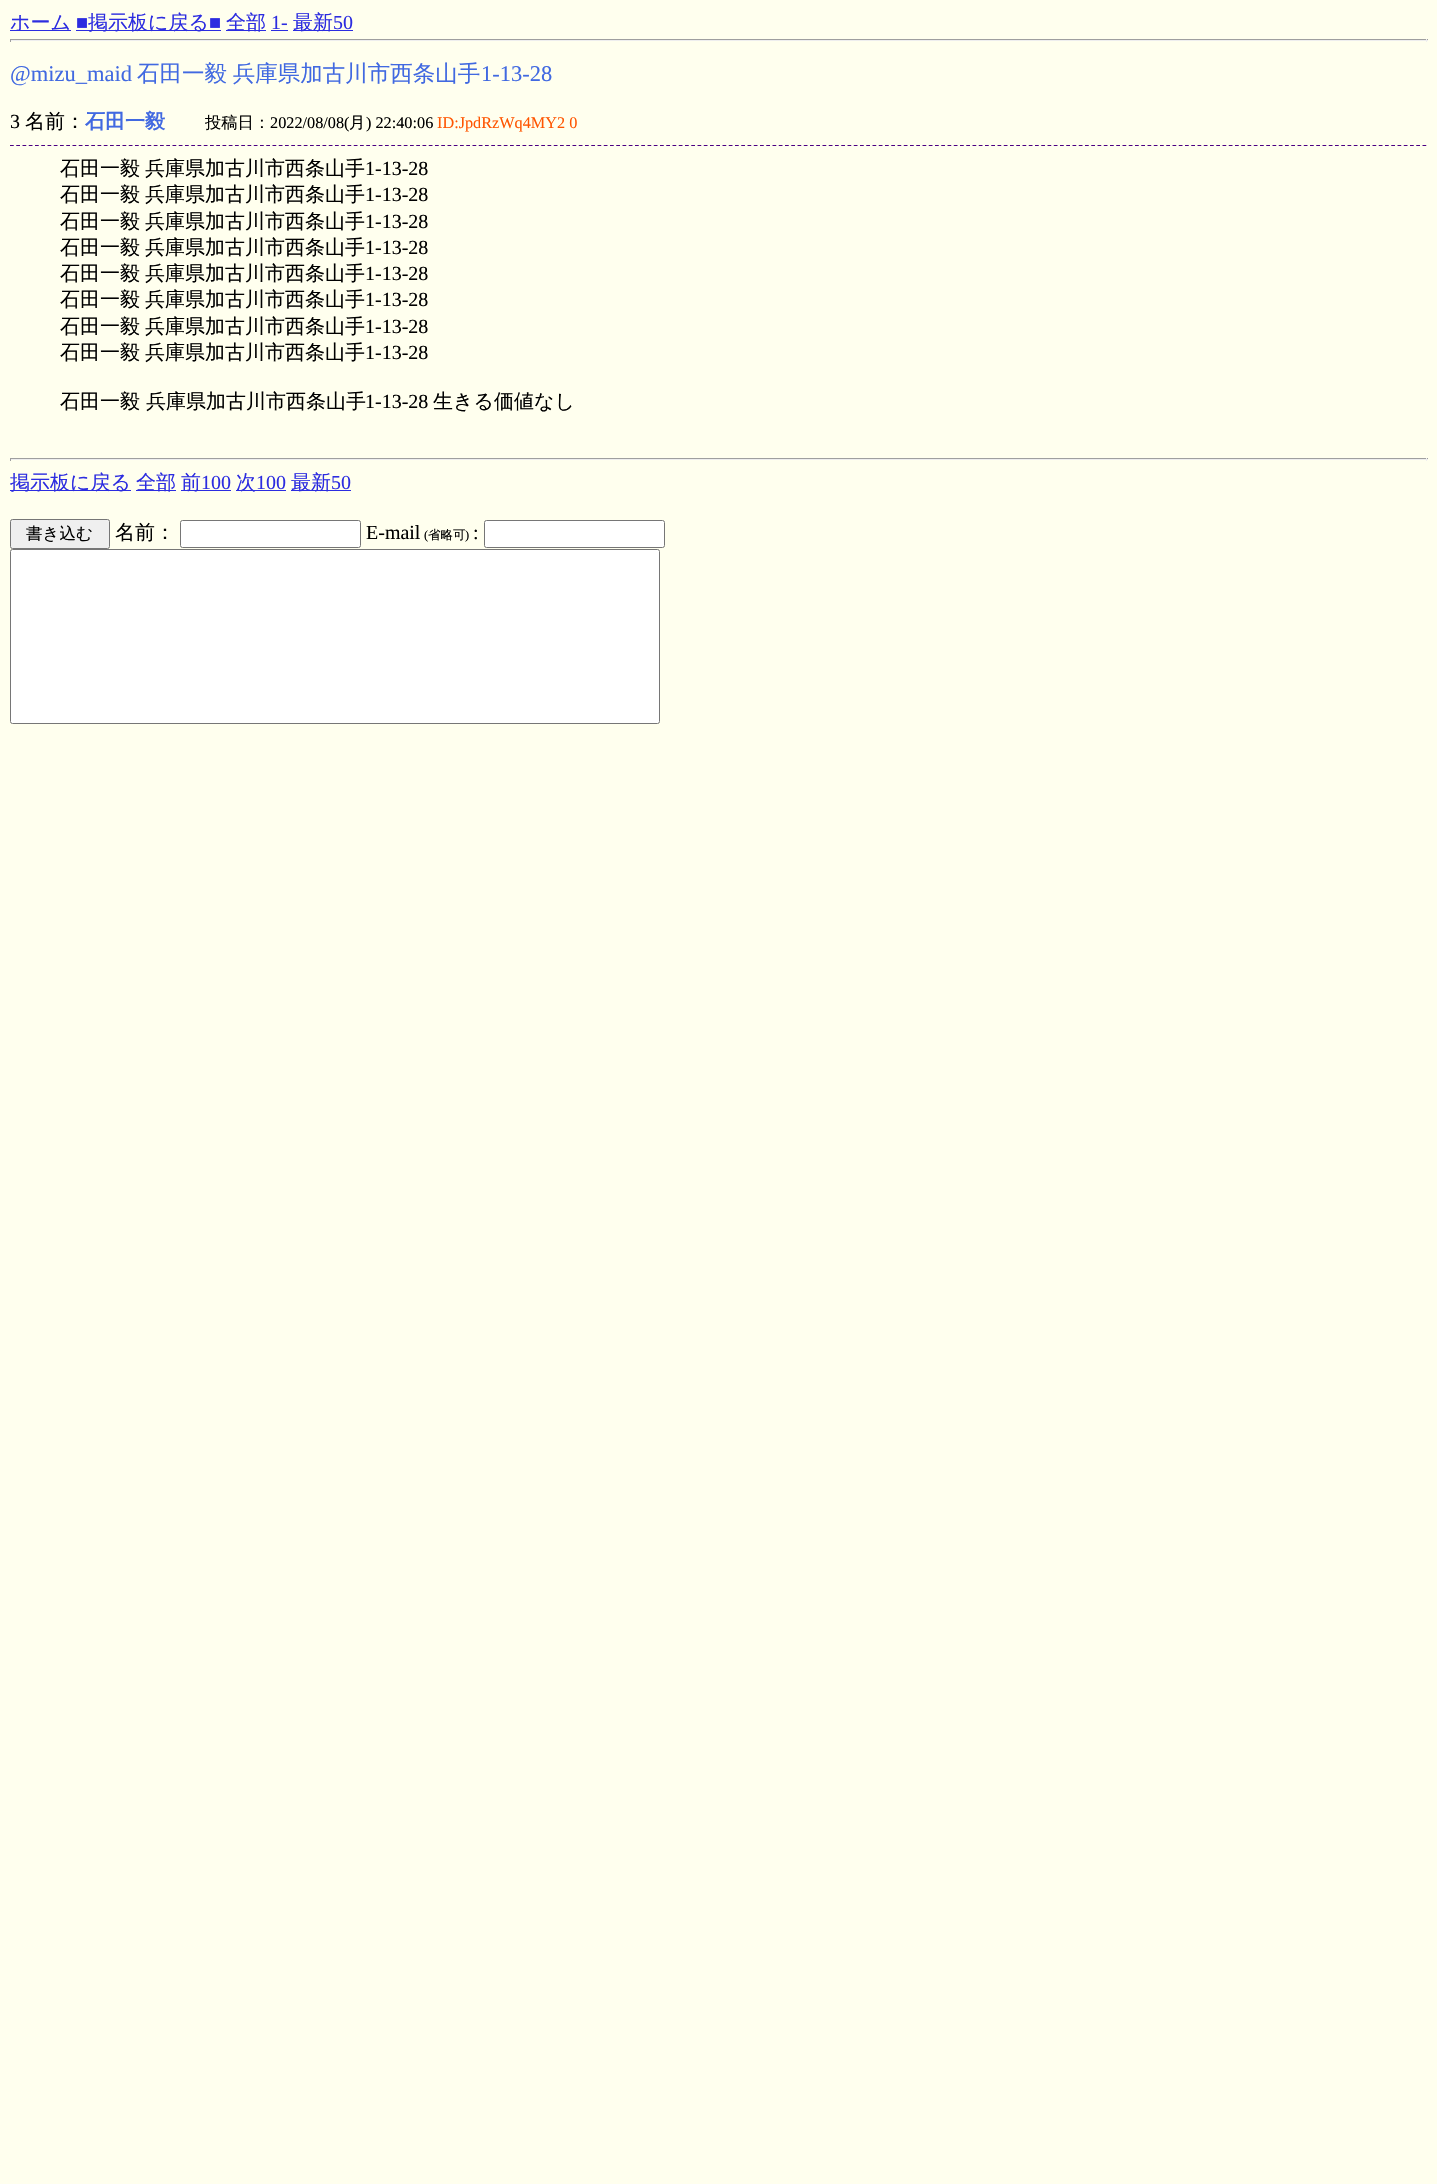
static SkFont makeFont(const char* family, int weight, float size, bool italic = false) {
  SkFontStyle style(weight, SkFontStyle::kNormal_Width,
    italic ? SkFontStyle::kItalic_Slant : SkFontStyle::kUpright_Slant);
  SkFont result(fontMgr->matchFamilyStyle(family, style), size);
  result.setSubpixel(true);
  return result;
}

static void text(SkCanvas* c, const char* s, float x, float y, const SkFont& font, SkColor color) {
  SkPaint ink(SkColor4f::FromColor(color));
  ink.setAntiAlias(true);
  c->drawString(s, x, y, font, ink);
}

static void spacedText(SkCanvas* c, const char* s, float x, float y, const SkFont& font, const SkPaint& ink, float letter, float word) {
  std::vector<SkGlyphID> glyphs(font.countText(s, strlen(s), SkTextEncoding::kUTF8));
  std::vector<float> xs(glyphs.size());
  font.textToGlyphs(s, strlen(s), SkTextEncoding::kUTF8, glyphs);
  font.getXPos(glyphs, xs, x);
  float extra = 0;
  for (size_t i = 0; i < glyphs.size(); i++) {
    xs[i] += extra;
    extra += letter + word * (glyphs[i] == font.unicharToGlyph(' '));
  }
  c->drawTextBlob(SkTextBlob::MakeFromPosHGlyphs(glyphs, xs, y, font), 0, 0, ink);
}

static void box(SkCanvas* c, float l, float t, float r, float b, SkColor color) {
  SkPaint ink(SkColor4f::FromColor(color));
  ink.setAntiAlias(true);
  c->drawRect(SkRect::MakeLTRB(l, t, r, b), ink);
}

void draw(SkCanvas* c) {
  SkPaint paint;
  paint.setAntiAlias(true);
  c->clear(0xffffffee);
  box(c, 10, 30, 71, 31, 0xff2c2ce0);
  SkFont face1 = makeFont("WenQuanYi Zen Hei", 500, 20);
  text(c, "ホーム", 10, 29, face1, 0xff2c2ce0);
  SkFont face2 = makeFont("Liberation Serif", 400, 20);
  text(c, "■", 76, 29, face2, 0xff2c2ce0);
  box(c, 76, 30, 221, 31, 0xff2c2ce0);
  text(c, "掲示板に戻る", 88, 29, face1, 0xff2c2ce0);
  text(c, "■", 209, 29, face2, 0xff2c2ce0);
  box(c, 226, 30, 266, 31, 0xff2c2ce0);
  text(c, "全部", 226, 29, face1, 0xff2c2ce0);
  text(c, "1-", 271, 29, face2, 0xff2c2ce0);
  box(c, 271, 30, 288, 31, 0xff2c2ce0);
  box(c, 293, 30, 353, 31, 0xff2c2ce0);
  text(c, "最新", 293, 29, face1, 0xff2c2ce0);
  text(c, "50", 333, 29, face2, 0xff2c2ce0);
  box(c, 10, 39, 1428, 40, 0xff9f9f9f);
  box(c, 1426, 39, 1427, 42, 0xffeeeeee);
  box(c, 10, 40, 1428, 41, 0xffeeeeee);
  box(c, 10, 39, 11, 42, 0xff9f9f9f);
  SkFont face3 = makeFont("Liberation Serif", 400, 22.5f);
  text(c, "@mizu_maid", 10, 81, face3, 0xff4169e1);
  SkFont face4 = makeFont("WenQuanYi Zen Hei", 500, 22.5f);
  paint.setColor(0xff4169e1);
  spacedText(c, "石田一毅 兵庫県加古川市西条山手", 137, 81, face4, paint, 0, -1);
  text(c, "1-13-28", 481, 81, face3, 0xff4169e1);
  text(c, "3", 10, 128, face2, 0xff000000);
  text(c, "名前：", 25, 128, face1, 0xff000000);
  SkFont face5 = makeFont("WenQuanYi Zen Hei", 700, 20);
  text(c, "石田一毅", 85, 128, face5, 0xff4169e1);
  SkFont face6 = makeFont("WenQuanYi Zen Hei", 500, 16.25f);
  text(c, "投稿日：", 205, 128, face6, 0xff000000);
  SkFont face7 = makeFont("Liberation Serif", 400, 16.25f);
  text(c, "2022/08/08(", 270, 128, face7, 0xff000000);
  text(c, "月", 349, 128, face6, 0xff000000);
  text(c, ") 22:40:06", 366, 128, face7, 0xff000000);
  text(c, "ID:JpdRzWq4MY2 0", 437, 128, face7, 0xffff5500);
  paint.setStyle(SkPaint::kStroke_Style);
  paint.setStrokeWidth(1.2f);
  paint.setColor(0xff4b0082);
  paint.setPathEffect(SkDashPathEffect::Make({{3.75f, 2.5f}}, 0));
  c->drawPath(SkPathBuilder().moveTo(10, 145.5f).lineTo(1427.5f, 145.5f).detach(), paint);
  paint.setPathEffect(nullptr);
  paint.setStyle(SkPaint::kFill_Style);
  paint.setColor(0xff000000);
  spacedText(c, "石田一毅 兵庫県加古川市西条山手", 60, 175, face1, paint, 0, -1);
  text(c, "1-13-28", 365, 175, face2, 0xff000000);
  spacedText(c, "石田一毅 兵庫県加古川市西条山手", 60, 201, face1, paint, 0, -1);
  text(c, "1-13-28", 365, 201, face2, 0xff000000);
  spacedText(c, "石田一毅 兵庫県加古川市西条山手", 60, 228, face1, paint, 0, -1);
  text(c, "1-13-28", 365, 228, face2, 0xff000000);
  spacedText(c, "石田一毅 兵庫県加古川市西条山手", 60, 254, face1, paint, 0, -1);
  text(c, "1-13-28", 365, 254, face2, 0xff000000);
  spacedText(c, "石田一毅 兵庫県加古川市西条山手", 60, 280, face1, paint, 0, -1);
  text(c, "1-13-28", 365, 280, face2, 0xff000000);
  spacedText(c, "石田一毅 兵庫県加古川市西条山手", 60, 306, face1, paint, 0, -1);
  text(c, "1-13-28", 365, 306, face2, 0xff000000);
  spacedText(c, "石田一毅 兵庫県加古川市西条山手", 60, 333, face1, paint, 0, -1);
  text(c, "1-13-28", 365, 333, face2, 0xff000000);
  spacedText(c, "石田一毅 兵庫県加古川市西条山手", 60, 359, face1, paint, 0, -1);
  text(c, "1-13-28", 365, 359, face2, 0xff000000);
  text(c, "石田一毅 兵庫県加古川市西条山手", 60, 408, face1, 0xff000000);
  text(c, "1-13-28", 365, 408, face2, 0xff000000);
  text(c, "生きる価値なし", 433, 408, face1, 0xff000000);
  box(c, 10, 458, 1428, 459, 0xff9f9f9f);
  box(c, 1426, 458, 1427, 461, 0xffeeeeee);
  box(c, 10, 459, 1428, 460, 0xffeeeeee);
  box(c, 10, 458, 11, 461, 0xff9f9f9f);
  box(c, 10, 490, 131, 491, 0xff2c2ce0);
  text(c, "掲示板に戻る", 10, 489, face1, 0xff2c2ce0);
  box(c, 136, 490, 176, 491, 0xff2c2ce0);
  text(c, "全部", 136, 489, face1, 0xff2c2ce0);
  box(c, 181, 490, 231, 491, 0xff2c2ce0);
  text(c, "前", 181, 489, face1, 0xff2c2ce0);
  text(c, "100", 201, 489, face2, 0xff2c2ce0);
  box(c, 236, 490, 286, 491, 0xff2c2ce0);
  text(c, "次", 236, 489, face1, 0xff2c2ce0);
  text(c, "100", 256, 489, face2, 0xff2c2ce0);
  box(c, 291, 490, 351, 491, 0xff2c2ce0);
  text(c, "最新", 291, 489, face1, 0xff2c2ce0);
  text(c, "50", 331, 489, face2, 0xff2c2ce0);
  paint.setColor(0xffefefef);
  c->drawRoundRect(SkRect::MakeLTRB(10.5f, 519.5f, 109.5f, 548.5f), 2, 2, paint);
  paint.setStyle(SkPaint::kStroke_Style);
  paint.setStrokeWidth(1);
  paint.setColor(0xff767676);
  c->drawRoundRect(SkRect::MakeLTRB(10.5f, 519.5f, 109.5f, 548.5f), 2, 2, paint);
  SkFont face8 = makeFont("WenQuanYi Zen Hei", 500, 16.5f);
  text(c, "書き込む", 26, 539, face8, 0xff000000);
  text(c, "名前：", 115, 539, face1, 0xff000000);
  paint.setStyle(SkPaint::kFill_Style);
  paint.setColor(0xffffffff);
  c->drawRoundRect(SkRect::MakeLTRB(180.5f, 520.5f, 360.5f, 547.5f), 2, 2, paint);
  paint.setStyle(SkPaint::kStroke_Style);
  paint.setColor(0xff767676);
  c->drawRoundRect(SkRect::MakeLTRB(180.5f, 520.5f, 360.5f, 547.5f), 2, 2, paint);
  text(c, "E-mail", 366, 539, face2, 0xff000000);
  SkFont face9 = makeFont("Liberation Serif", 400, 12.5f);
  text(c, "(", 424, 539, face9, 0xff000000);
  SkFont face10 = makeFont("WenQuanYi Zen Hei", 500, 12.5f);
  text(c, "省略可", 428, 539, face10, 0xff000000);
  text(c, ")", 465, 539, face9, 0xff000000);
  text(c, ":", 473, 539, face2, 0xff000000);
  paint.setStyle(SkPaint::kFill_Style);
  paint.setColor(0xffffffff);
  c->drawRoundRect(SkRect::MakeLTRB(484.5f, 520.5f, 664.5f, 547.5f), 2, 2, paint);
  paint.setStyle(SkPaint::kStroke_Style);
  paint.setColor(0xff767676);
  c->drawRoundRect(SkRect::MakeLTRB(484.5f, 520.5f, 664.5f, 547.5f), 2, 2, paint);
  paint.setStyle(SkPaint::kFill_Style);
  paint.setColor(0xffffffff);
  c->drawRoundRect(SkRect::MakeLTRB(10.5f, 549.5f, 659.5f, 723.5f), 2, 2, paint);
  paint.setStyle(SkPaint::kStroke_Style);
  paint.setColor(0xff767676);
  c->drawRoundRect(SkRect::MakeLTRB(10.5f, 549.5f, 659.5f, 723.5f), 2, 2, paint);
}
